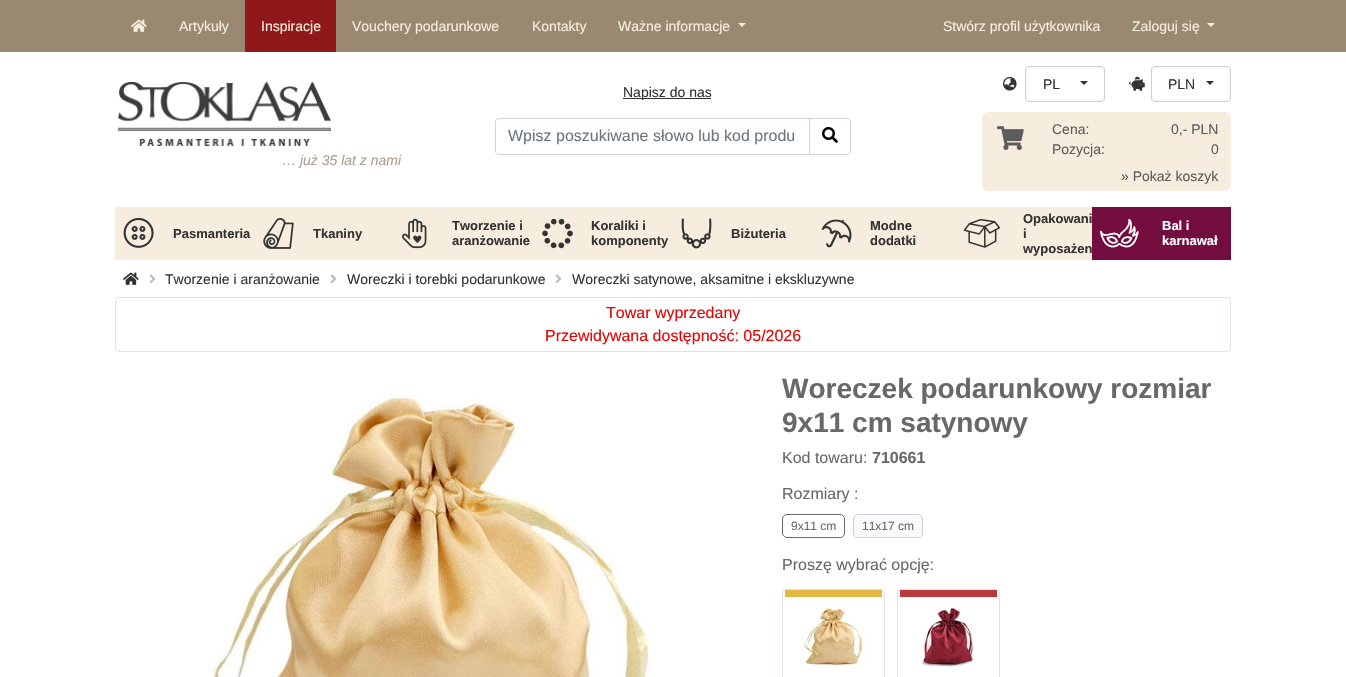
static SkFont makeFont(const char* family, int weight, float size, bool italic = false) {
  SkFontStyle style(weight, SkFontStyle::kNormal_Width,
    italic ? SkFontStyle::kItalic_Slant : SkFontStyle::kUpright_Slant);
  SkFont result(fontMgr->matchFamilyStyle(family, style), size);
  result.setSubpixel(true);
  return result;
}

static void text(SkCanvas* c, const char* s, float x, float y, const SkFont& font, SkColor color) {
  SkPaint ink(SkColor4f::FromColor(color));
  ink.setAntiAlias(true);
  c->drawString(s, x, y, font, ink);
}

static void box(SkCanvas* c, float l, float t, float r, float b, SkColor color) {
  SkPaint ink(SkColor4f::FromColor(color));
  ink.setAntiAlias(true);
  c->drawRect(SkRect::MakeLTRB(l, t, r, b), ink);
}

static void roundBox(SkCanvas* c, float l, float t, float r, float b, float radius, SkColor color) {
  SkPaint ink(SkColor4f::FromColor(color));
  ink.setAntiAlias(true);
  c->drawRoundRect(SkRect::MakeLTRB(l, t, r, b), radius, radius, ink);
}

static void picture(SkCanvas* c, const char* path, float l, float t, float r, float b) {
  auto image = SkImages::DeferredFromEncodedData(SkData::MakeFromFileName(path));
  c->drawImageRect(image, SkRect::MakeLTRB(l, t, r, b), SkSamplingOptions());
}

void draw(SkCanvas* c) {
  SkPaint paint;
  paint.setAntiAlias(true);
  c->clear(0xffffffff);
  box(c, 0, 0, 1346, 52, 0xff9a8870);
  picture(c, "img_01.png", 131, 19, 147, 32);
  SkFont face1 = makeFont("Liberation Sans", 400, 14);
  text(c, "Artykuły", 179, 31, face1, 0xfff7edde);
  box(c, 245, 0, 336, 52, 0xff8e181a);
  text(c, "Inspiracje", 261, 31, face1, 0xfff7edde);
  text(c, "Vouchery podarunkowe", 352, 31, face1, 0xfff7edde);
  text(c, "Kontakty", 532, 31, face1, 0xfff7edde);
  text(c, "Ważne informacje", 618, 31, face1, 0xfff7edde);
  paint.setColor(0xfff7edde);
  c->drawPath(SkPathBuilder().moveTo(738, 23).lineTo(746, 23).lineTo(742, 27).close().detach(), paint);
  text(c, "Stwórz profil użytkownika", 943, 31, face1, 0xfff7edde);
  text(c, "Zaloguj się", 1132, 31, face1, 0xfff7edde);
  c->drawPath(SkPathBuilder().moveTo(1207, 23).lineTo(1215, 23).lineTo(1211, 27).close().detach(), paint);
  box(c, 623, 98, 711, 99, 0xff333333);
  text(c, "Napisz do nas", 623, 97, face1, 0xff333333);
  paint.setStyle(SkPaint::kStroke_Style);
  paint.setStrokeWidth(1);
  paint.setColor(0xffced4da);
  c->drawPath(SkPathBuilder().moveTo(499, 118.5f).lineTo(809.5f, 118.5f).lineTo(809.5f, 154.5f).lineTo(499, 154.5f).cubicTo(497, 154.5f, 495.5f, 153, 495.5f, 151).lineTo(495.5f, 122).cubicTo(495.5f, 120, 497, 118.5f, 499, 118.5f).close().detach(), paint);
  SkFont face2 = makeFont("Liberation Sans", 400, 16);
  text(c, "Wpisz poszukiwane słowo lub kod produ", 508, 141, face2, 0xff6c757d);
  paint.setStyle(SkPaint::kFill_Style);
  paint.setColor(0xffffffff);
  c->drawPath(SkPathBuilder().moveTo(809.5f, 118.5f).lineTo(847, 118.5f).cubicTo(849, 118.5f, 850.5f, 120, 850.5f, 122).lineTo(850.5f, 151).cubicTo(850.5f, 153, 849, 154.5f, 847, 154.5f).lineTo(809.5f, 154.5f).close().detach(), paint);
  paint.setStyle(SkPaint::kStroke_Style);
  paint.setColor(0xffced4da);
  c->drawPath(SkPathBuilder().moveTo(809.5f, 118.5f).lineTo(847, 118.5f).cubicTo(849, 118.5f, 850.5f, 120, 850.5f, 122).lineTo(850.5f, 151).cubicTo(850.5f, 153, 849, 154.5f, 847, 154.5f).lineTo(809.5f, 154.5f).close().detach(), paint);
  picture(c, "img_02.png", 822, 127, 838, 143);
  paint.setColor(0xffcccccc);
  c->drawRoundRect(SkRect::MakeLTRB(1025.5f, 66.5f, 1104.5f, 101.5f), 3.5f, 3.5f, paint);
  picture(c, "img_03.png", 1003, 77, 1017, 91);
  text(c, "PL", 1043, 89, face1, 0xff333333);
  paint.setStyle(SkPaint::kFill_Style);
  paint.setColor(0xff333333);
  c->drawPath(SkPathBuilder().moveTo(1080, 81).lineTo(1088, 81).lineTo(1084, 85).close().detach(), paint);
  paint.setStyle(SkPaint::kStroke_Style);
  paint.setColor(0xffcccccc);
  c->drawRoundRect(SkRect::MakeLTRB(1151.5f, 66.5f, 1230.5f, 101.5f), 3.5f, 3.5f, paint);
  picture(c, "img_04.png", 1129, 76, 1145, 91);
  text(c, "PLN", 1168, 89, face1, 0xff333333);
  paint.setStyle(SkPaint::kFill_Style);
  paint.setColor(0xff333333);
  c->drawPath(SkPathBuilder().moveTo(1206, 81).lineTo(1214, 81).lineTo(1210, 85).close().detach(), paint);
  roundBox(c, 982, 112, 1231, 191, 6, 0xfff7edde);
  picture(c, "img_05.png", 997, 126, 1024, 150);
  text(c, "Cena:", 1052, 134, face1, 0xff5c5c5c);
  text(c, "Pozycja:", 1052, 154, face1, 0xff5c5c5c);
  text(c, "0,- PLN", 1171, 134, face1, 0xff5c5c5c);
  text(c, "0", 1211, 154, face1, 0xff5c5c5c);
  text(c, "» Pokaż koszyk", 1121, 181, face1, 0xff5c5c5c);
  picture(c, "img_06.png", 118, 82, 331, 146);
  SkFont face3 = makeFont("Liberation Sans", 400, 14, true);
  text(c, "… już 35 lat z nami", 282, 165, face3, 0xffaea08d);
  box(c, 115, 207, 1092, 260, 0xfff7edde);
  picture(c, "img_07.png", 123, 217, 154, 248);
  SkFont face4 = makeFont("Liberation Sans", 700, 13);
  text(c, "Pasmanteria", 173, 238, face4, 0xff333333);
  picture(c, "img_08.png", 263, 218, 294, 249);
  text(c, "Tkaniny", 313, 238, face4, 0xff333333);
  picture(c, "img_09.png", 402, 218, 427, 249);
  text(c, "Tworzenie i", 452, 230, face4, 0xff333333);
  text(c, "aranżowanie", 452, 245, face4, 0xff333333);
  picture(c, "img_10.png", 542, 218, 573, 249);
  text(c, "Koraliki i", 591, 230, face4, 0xff333333);
  text(c, "komponenty", 591, 245, face4, 0xff333333);
  picture(c, "img_11.png", 681, 218, 712, 249);
  text(c, "Biżuteria", 731, 238, face4, 0xff333333);
  picture(c, "img_12.png", 821, 219, 852, 248);
  text(c, "Modne", 870, 230, face4, 0xff333333);
  text(c, "dodatki", 870, 245, face4, 0xff333333);
  picture(c, "img_13.png", 963, 218, 1001, 248);
  text(c, "Opakowani", 1023, 223, face4, 0xff333333);
  text(c, "i", 1023, 238, face4, 0xff333333);
  text(c, "wyposażen", 1023, 253, face4, 0xff333333);
  box(c, 1092, 207, 1231, 260, 0xff730d3d);
  SkFont face5 = makeFont("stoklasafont", 400, 31);
  text(c, "1", 1100, 247, face5, 0xffffffff);
  text(c, "Bal i", 1162, 230, face4, 0xffffffff);
  text(c, "karnawał", 1162, 245, face4, 0xffffffff);
  picture(c, "img_14.png", 123, 272, 139, 285);
  picture(c, "img_15.png", 149, 274, 156, 283);
  text(c, "Tworzenie i aranżowanie", 165, 284, face1, 0xff333333);
  picture(c, "img_15.png", 330, 274, 337, 283);
  text(c, "Woreczki i torebki podarunkowe", 347, 284, face1, 0xff333333);
  picture(c, "img_15.png", 555, 274, 562, 283);
  text(c, "Woreczki satynowe, aksamitne i ekskluzywne", 572, 284, face1, 0xff333333);
  paint.setStyle(SkPaint::kStroke_Style);
  paint.setColor(0xffdee2e6);
  c->drawRoundRect(SkRect::MakeLTRB(115.5f, 297.5f, 1230.5f, 351.5f), 3.5f, 3.5f, paint);
  text(c, "Towar wyprzedany", 606, 318, face2, 0xffef0000);
  text(c, "Przewidywana dostępność: 05/2026", 545, 341, face2, 0xffef0000);
  picture(c, "img_16.png", 211, 393, 653, 677);
  SkFont face6 = makeFont("Liberation Sans", 700, 28);
  text(c, "Woreczek podarunkowy rozmiar", 782, 398, face6, 0xff686868);
  text(c, "9x11 cm satynowy", 782, 432, face6, 0xff686868);
  text(c, "Kod towaru:", 782, 463, face2, 0xff686868);
  SkFont face7 = makeFont("Liberation Sans", 700, 16);
  text(c, "710661", 872, 463, face7, 0xff686868);
  text(c, "Rozmiary :", 782, 499, face2, 0xff686868);
  paint.setColor(0xff686868);
  c->drawRoundRect(SkRect::MakeLTRB(782.5f, 514.5f, 844.5f, 537.5f), 4.5f, 4.5f, paint);
  SkFont face8 = makeFont("Liberation Sans", 400, 12);
  text(c, "9x11 cm", 791, 530, face8, 0xff686868);
  paint.setStyle(SkPaint::kFill_Style);
  paint.setColor(0xfff8f9fa);
  c->drawRoundRect(SkRect::MakeLTRB(853.5f, 514.5f, 922.5f, 537.5f), 4.5f, 4.5f, paint);
  paint.setStyle(SkPaint::kStroke_Style);
  paint.setColor(0xffced4da);
  c->drawRoundRect(SkRect::MakeLTRB(853.5f, 514.5f, 922.5f, 537.5f), 4.5f, 4.5f, paint);
  text(c, "11x17 cm", 862, 530, face8, 0xff686868);
  text(c, "Proszę wybrać opcję:", 782, 570, face2, 0xff686868);
  paint.setColor(0xffdee2e6);
  c->drawRoundRect(SkRect::MakeLTRB(782.5f, 589.5f, 884.5f, 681.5f), 3.5f, 3.5f, paint);
  box(c, 785, 590, 882, 597, 0xffe4b646);
  picture(c, "img_17.png", 803, 607, 866, 666);
  c->drawRoundRect(SkRect::MakeLTRB(897.5f, 589.5f, 999.5f, 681.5f), 3.5f, 3.5f, paint);
  box(c, 900, 590, 997, 597, 0xffb83a3d);
  picture(c, "img_18.png", 920, 608, 974, 667);
}
